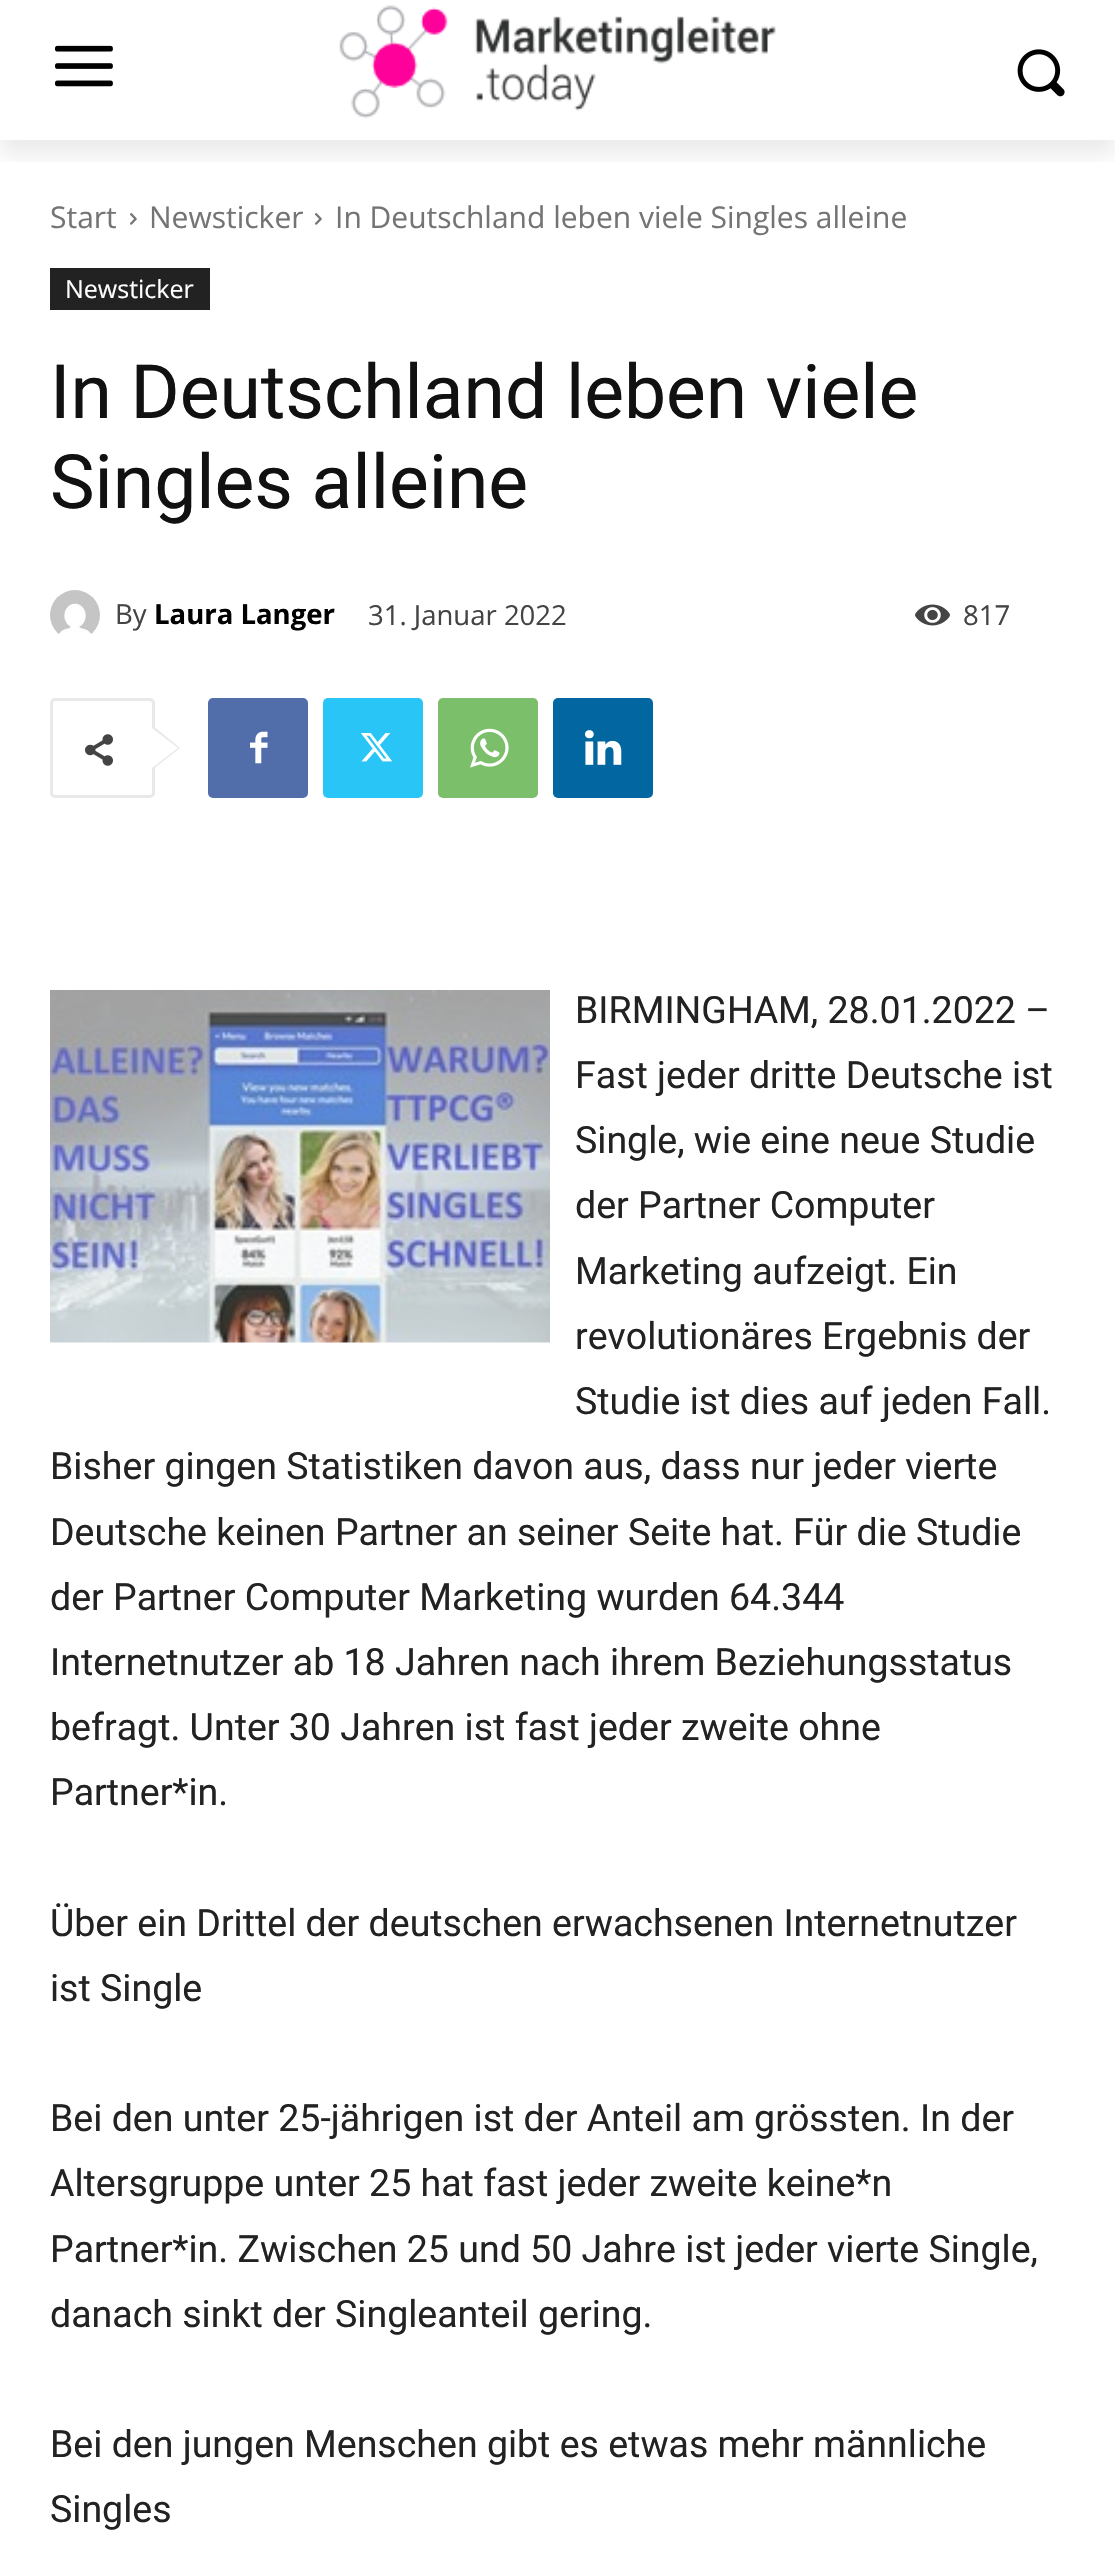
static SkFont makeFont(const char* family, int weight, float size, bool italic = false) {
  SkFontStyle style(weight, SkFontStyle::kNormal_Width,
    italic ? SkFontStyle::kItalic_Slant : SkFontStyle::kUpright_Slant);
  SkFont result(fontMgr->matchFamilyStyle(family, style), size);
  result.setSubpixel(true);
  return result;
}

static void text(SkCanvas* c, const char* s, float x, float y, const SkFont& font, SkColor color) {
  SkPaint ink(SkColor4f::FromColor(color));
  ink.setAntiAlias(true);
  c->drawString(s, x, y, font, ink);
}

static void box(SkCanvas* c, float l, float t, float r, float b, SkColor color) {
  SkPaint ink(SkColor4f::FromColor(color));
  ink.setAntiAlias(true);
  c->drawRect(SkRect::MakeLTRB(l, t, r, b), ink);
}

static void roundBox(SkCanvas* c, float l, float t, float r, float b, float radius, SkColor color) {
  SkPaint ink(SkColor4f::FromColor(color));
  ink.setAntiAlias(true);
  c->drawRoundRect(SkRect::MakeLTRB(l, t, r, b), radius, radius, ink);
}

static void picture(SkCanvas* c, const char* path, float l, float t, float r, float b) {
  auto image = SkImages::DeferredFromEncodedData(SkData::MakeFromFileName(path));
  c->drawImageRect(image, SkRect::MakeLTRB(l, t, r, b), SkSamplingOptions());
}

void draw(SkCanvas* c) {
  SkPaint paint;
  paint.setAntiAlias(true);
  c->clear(0xffffffff);
  picture(c, "img_01.png", 55, 45, 113, 87);
  picture(c, "img_02.png", 339, 5, 776, 119);
  picture(c, "img_03.png", 1017, 49, 1065, 97);
  c->save();
  c->clipRect(SkRect::MakeLTRB(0, 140, 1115, 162));
  paint.setColor(0x14000000);
  paint.setMaskFilter(SkMaskFilter::MakeBlur(kNormal_SkBlurStyle, 10));
  c->drawRect(SkRect::MakeLTRB(0, 15, 1115, 155), paint);
  paint.setMaskFilter(nullptr);
  c->restore();
  SkFont face1 = makeFont("Open Sans", 400, 30);
  text(c, "Start", 50, 228, face1, 0xff747474);
  picture(c, "img_04.png", 130, 213, 137, 225);
  text(c, "Newsticker", 149, 228, face1, 0xff747474);
  picture(c, "img_04.png", 315, 213, 322, 225);
  text(c, "In Deutschland leben viele Singles alleine", 335, 228, face1, 0xff747474);
  box(c, 50, 268, 210, 310, 0xff222222);
  SkFont face2 = makeFont("Open Sans", 400, 25);
  text(c, "Newsticker", 65, 298, face2, 0xffffffff);
  SkFont face3 = makeFont("Roboto", 400, 75);
  text(c, "In Deutschland leben viele", 50, 418, face3, 0xff111111);
  text(c, "Singles alleine", 50, 508, face3, 0xff111111);
  picture(c, "img_05.png", 50, 590, 100, 634);
  SkFont face4 = makeFont("Open Sans", 400, 27.5f);
  text(c, "By", 115, 624, face4, 0xff444444);
  SkFont face5 = makeFont("Open Sans", 700, 27.5f);
  text(c, "Laura Langer", 154, 624, face5, 0xff000000);
  text(c, "31. Januar 2022", 368, 625, face4, 0xff444444);
  picture(c, "img_06.png", 915, 604, 950, 626);
  text(c, "817", 963, 625, face4, 0xff444444);
  paint.setStyle(SkPaint::kStroke_Style);
  paint.setStrokeWidth(3);
  paint.setColor(0xffe9e9e9);
  c->drawRoundRect(SkRect::MakeLTRB(51.5f, 699.5f, 153.5f, 796.5f), 3.5f, 3.5f, paint);
  paint.setStyle(SkPaint::kFill_Style);
  c->drawPath(SkPathBuilder().moveTo(152, 770).lineTo(152, 725).lineTo(180, 748).close().detach(), paint);
  picture(c, "img_07.png", 85, 734, 113, 766);
  paint.setColor(0xffffffff);
  c->drawPath(SkPathBuilder().moveTo(152, 768).lineTo(152, 728).lineTo(178, 748).close().detach(), paint);
  roundBox(c, 208, 698, 308, 798, 5, 0xff516eab);
  picture(c, "img_08.png", 250, 731, 268, 764);
  roundBox(c, 323, 698, 423, 798, 5, 0xff29c5f6);
  picture(c, "img_09.png", 361, 733, 393, 762);
  roundBox(c, 438, 698, 538, 798, 5, 0xff7bbf6a);
  picture(c, "img_10.png", 470, 728, 509, 768);
  roundBox(c, 553, 698, 653, 798, 5, 0xff0266a0);
  picture(c, "img_11.png", 585, 730, 622, 765);
  picture(c, "img_12.png", 50, 990, 550, 1343);
  SkFont face6 = makeFont("Roboto", 400, 37.5f);
  text(c, "BIRMINGHAM, 28.01.2022 –", 575, 1023, face6, 0xff222222);
  text(c, "Fast jeder dritte Deutsche ist", 575, 1088, face6, 0xff222222);
  text(c, "Single, wie eine neue Studie", 575, 1153, face6, 0xff222222);
  text(c, "der Partner Computer", 575, 1218, face6, 0xff222222);
  text(c, "Marketing aufzeigt. Ein", 575, 1284, face6, 0xff222222);
  text(c, "revolutionäres Ergebnis der", 575, 1349, face6, 0xff222222);
  text(c, "Studie ist dies auf jeden Fall.", 575, 1414, face6, 0xff222222);
  text(c, "Bisher gingen Statistiken davon aus, dass nur jeder vierte", 50, 1479, face6, 0xff222222);
  text(c, "Deutsche keinen Partner an seiner Seite hat. Für die Studie", 50, 1545, face6, 0xff222222);
  text(c, "der Partner Computer Marketing wurden 64.344", 50, 1610, face6, 0xff222222);
  text(c, "Internetnutzer ab 18 Jahren nach ihrem Beziehungsstatus", 50, 1675, face6, 0xff222222);
  text(c, "befragt. Unter 30 Jahren ist fast jeder zweite ohne", 50, 1740, face6, 0xff222222);
  text(c, "Partner*in.", 50, 1805, face6, 0xff222222);
  text(c, "Über ein Drittel der deutschen erwachsenen Internetnutzer", 50, 1936, face6, 0xff222222);
  text(c, "ist Single", 50, 2001, face6, 0xff222222);
  text(c, "Bei den unter 25-jährigen ist der Anteil am grössten. In der", 50, 2131, face6, 0xff222222);
  text(c, "Altersgruppe unter 25 hat fast jeder zweite keine*n", 50, 2196, face6, 0xff222222);
  text(c, "Partner*in. Zwischen 25 und 50 Jahre ist jeder vierte Single,", 50, 2262, face6, 0xff222222);
  text(c, "danach sinkt der Singleanteil gering.", 50, 2327, face6, 0xff222222);
  text(c, "Bei den jungen Menschen gibt es etwas mehr männliche", 50, 2457, face6, 0xff222222);
  text(c, "Singles", 50, 2522, face6, 0xff222222);
}
